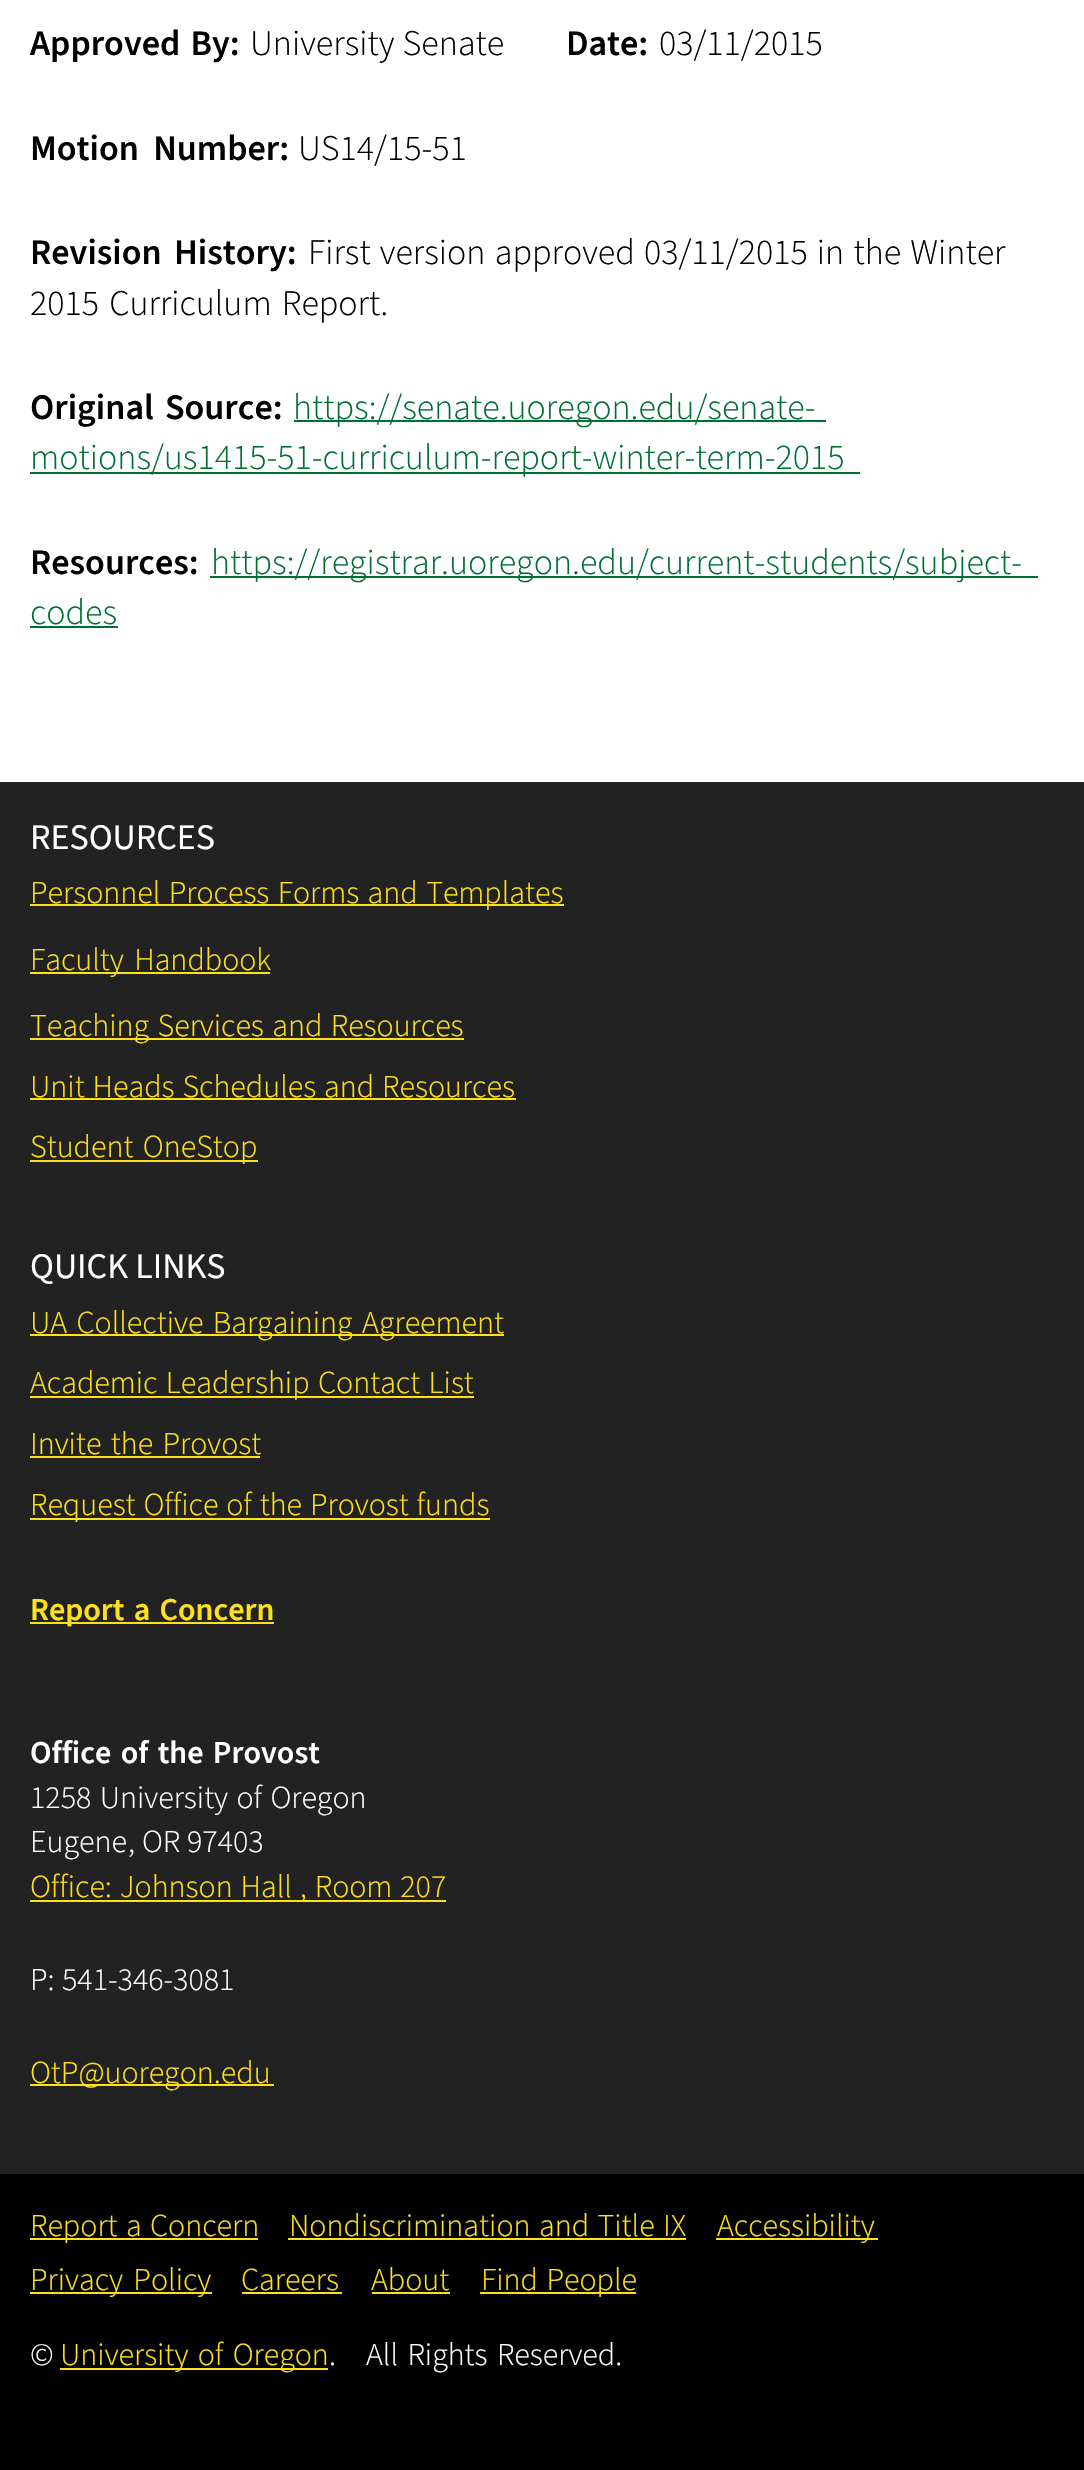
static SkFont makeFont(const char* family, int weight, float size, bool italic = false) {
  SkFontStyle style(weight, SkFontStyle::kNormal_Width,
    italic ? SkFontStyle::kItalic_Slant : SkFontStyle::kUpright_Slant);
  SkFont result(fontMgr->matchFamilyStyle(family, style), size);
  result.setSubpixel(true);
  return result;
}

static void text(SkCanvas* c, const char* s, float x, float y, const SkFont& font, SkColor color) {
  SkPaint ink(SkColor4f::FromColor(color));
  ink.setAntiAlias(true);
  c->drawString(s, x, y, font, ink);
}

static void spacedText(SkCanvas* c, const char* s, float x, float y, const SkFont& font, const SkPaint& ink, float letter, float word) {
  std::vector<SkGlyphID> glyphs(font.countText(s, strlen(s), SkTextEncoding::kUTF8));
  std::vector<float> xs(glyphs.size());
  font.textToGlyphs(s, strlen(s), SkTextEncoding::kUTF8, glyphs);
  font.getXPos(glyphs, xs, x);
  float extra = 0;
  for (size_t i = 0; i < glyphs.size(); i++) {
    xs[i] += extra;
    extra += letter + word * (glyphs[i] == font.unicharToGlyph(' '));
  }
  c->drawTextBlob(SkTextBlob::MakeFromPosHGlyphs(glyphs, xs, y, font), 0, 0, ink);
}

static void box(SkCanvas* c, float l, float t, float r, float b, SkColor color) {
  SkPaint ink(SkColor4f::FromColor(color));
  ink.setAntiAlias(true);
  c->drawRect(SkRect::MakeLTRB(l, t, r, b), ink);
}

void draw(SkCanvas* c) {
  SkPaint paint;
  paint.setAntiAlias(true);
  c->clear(0xff000000);
  box(c, 0, 0, 1084, 782, 0xffffffff);
  SkFont face1 = makeFont("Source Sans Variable", 600, 36);
  paint.setColor(0xff000000);
  spacedText(c, "Approved By:", 30, 55, face1, paint, 0, 3);
  SkFont face2 = makeFont("Source Sans Variable", 300, 36);
  spacedText(c, "University Senate", 250, 55, face2, paint, 0, 1);
  text(c, "Date:", 566, 55, face1, 0xff000000);
  text(c, "03/11/2015", 659, 55, face2, 0xff000000);
  spacedText(c, "Motion Number:", 30, 160, face1, paint, 0, 7);
  text(c, "US14/15-51", 298, 160, face2, 0xff000000);
  spacedText(c, "Revision History:", 30, 264, face1, paint, 0, 5);
  spacedText(c, "First version approved 03/11/2015 in the Winter", 308, 264, face2, paint, 0, 2);
  spacedText(c, "2015 Curriculum Report.", 30, 315, face2, paint, 0, 3);
  spacedText(c, "Original Source:", 30, 419, face1, paint, 0, 4);
  box(c, 294, 420, 826, 422, 0xff007030);
  text(c, "https://senate.uoregon.edu/senate-", 293, 419, face2, 0xff007030);
  box(c, 30, 472, 860, 474, 0xff007030);
  text(c, "motions/us1415-51-curriculum-report-winter-term-2015", 30, 469, face2, 0xff007030);
  text(c, "Resources:", 30, 574, face1, 0xff000000);
  box(c, 210, 576, 1038, 578, 0xff007030);
  text(c, "https://registrar.uoregon.edu/current-students/subject-", 211, 574, face2, 0xff007030);
  text(c, "codes", 30, 624, face2, 0xff007030);
  box(c, 30, 626, 118, 628, 0xff007030);
  box(c, 0, 782, 1084, 2174, 0xff222222);
  SkFont face3 = makeFont("Source Sans Variable", 400, 36);
  text(c, "RESOURCES", 30, 849, face3, 0xffffffff);
  box(c, 30, 904, 564, 906, 0xfffee11a);
  SkFont face4 = makeFont("Source Sans Variable", 300, 32);
  paint.setColor(0xfffee11a);
  spacedText(c, "Personnel Process Forms and Templates", 30, 903, face4, paint, 0, 2);
  box(c, 30, 972, 270, 974, 0xfffee11a);
  spacedText(c, "Faculty Handbook", 30, 970, face4, paint, 0, 4);
  box(c, 30, 1038, 464, 1040, 0xfffee11a);
  spacedText(c, "Teaching Services and Resources", 30, 1036, face4, paint, 0, 2);
  spacedText(c, "Unit Heads Schedules and Resources", 30, 1097, face4, paint, 0, 1.5f);
  box(c, 30, 1098, 516, 1100, 0xfffee11a);
  box(c, 30, 1160, 258, 1162, 0xfffee11a);
  spacedText(c, "Student OneStop", 30, 1157, face4, paint, 0, 3);
  text(c, "QUICK LINKS", 30, 1278, face3, 0xffffffff);
  box(c, 30, 1334, 504, 1336, 0xfffee11a);
  spacedText(c, "UA Collective Bargaining Agreement", 30, 1333, face4, paint, 0, 3);
  box(c, 30, 1396, 474, 1398, 0xfffee11a);
  spacedText(c, "Academic Leadership Contact List", 30, 1393, face4, paint, 0, 2);
  spacedText(c, "Invite the Provost", 30, 1454, face4, paint, 0, 3);
  box(c, 30, 1456, 260, 1458, 0xfffee11a);
  box(c, 30, 1518, 490, 1520, 0xfffee11a);
  spacedText(c, "Request Office of the Provost funds", 30, 1515, face4, paint, 0, 1.5f);
  box(c, 30, 1622, 274, 1624, 0xfffee11a);
  SkFont face5 = makeFont("Source Sans Variable", 600, 32);
  spacedText(c, "Report a Concern", 30, 1620, face5, paint, 0, 3);
  paint.setColor(0xffffffff);
  spacedText(c, "Office of the Provost", 30, 1763, face5, paint, 0, 3);
  spacedText(c, "1258 University of Oregon", 30, 1808, face4, paint, 0, 2);
  text(c, "Eugene", 30, 1852, face4, 0xffffffff);
  text(c, ",", 128, 1852, face4, 0xffffffff);
  text(c, "OR", 142, 1852, face4, 0xffffffff);
  text(c, "97403", 187, 1852, face4, 0xffffffff);
  box(c, 30, 1900, 446, 1902, 0xfffee11a);
  paint.setColor(0xfffee11a);
  spacedText(c, "Office: Johnson Hall , Room 207", 30, 1897, face4, paint, 0, 1.5f);
  text(c, "P:", 30, 1990, face4, 0xffffffff);
  text(c, "541-346-3081", 62, 1990, face4, 0xffffffff);
  box(c, 30, 2084, 274, 2086, 0xfffee11a);
  text(c, "OtP@uoregon.edu", 30, 2083, face4, 0xfffee11a);
  box(c, 30, 2238, 258, 2240, 0xfffee11a);
  spacedText(c, "Report a Concern", 30, 2236, face4, paint, 0, 2);
  spacedText(c, "Nondiscrimination and Title IX", 289, 2236, face4, paint, 0, 2);
  box(c, 288, 2238, 686, 2240, 0xfffee11a);
  box(c, 716, 2238, 878, 2240, 0xfffee11a);
  text(c, "Accessibility", 717, 2236, face4, 0xfffee11a);
  box(c, 30, 2292, 212, 2294, 0xfffee11a);
  spacedText(c, "Privacy Policy", 30, 2290, face4, paint, 0, 4);
  text(c, "Careers", 241, 2290, face4, 0xfffee11a);
  box(c, 242, 2292, 342, 2294, 0xfffee11a);
  text(c, "About", 371, 2290, face4, 0xfffee11a);
  box(c, 372, 2292, 450, 2294, 0xfffee11a);
  box(c, 480, 2292, 636, 2294, 0xfffee11a);
  spacedText(c, "Find People", 481, 2290, face4, paint, 0, 2);
  text(c, "©", 30, 2365, face4, 0xffffffff);
  box(c, 60, 2368, 328, 2370, 0xfffee11a);
  spacedText(c, "University of Oregon", 60, 2365, face4, paint, 0, 3);
  text(c, ".", 329, 2365, face4, 0xffffffff);
  paint.setColor(0xffffffff);
  spacedText(c, "All Rights Reserved.", 366, 2365, face4, paint, 0, 3);
}
